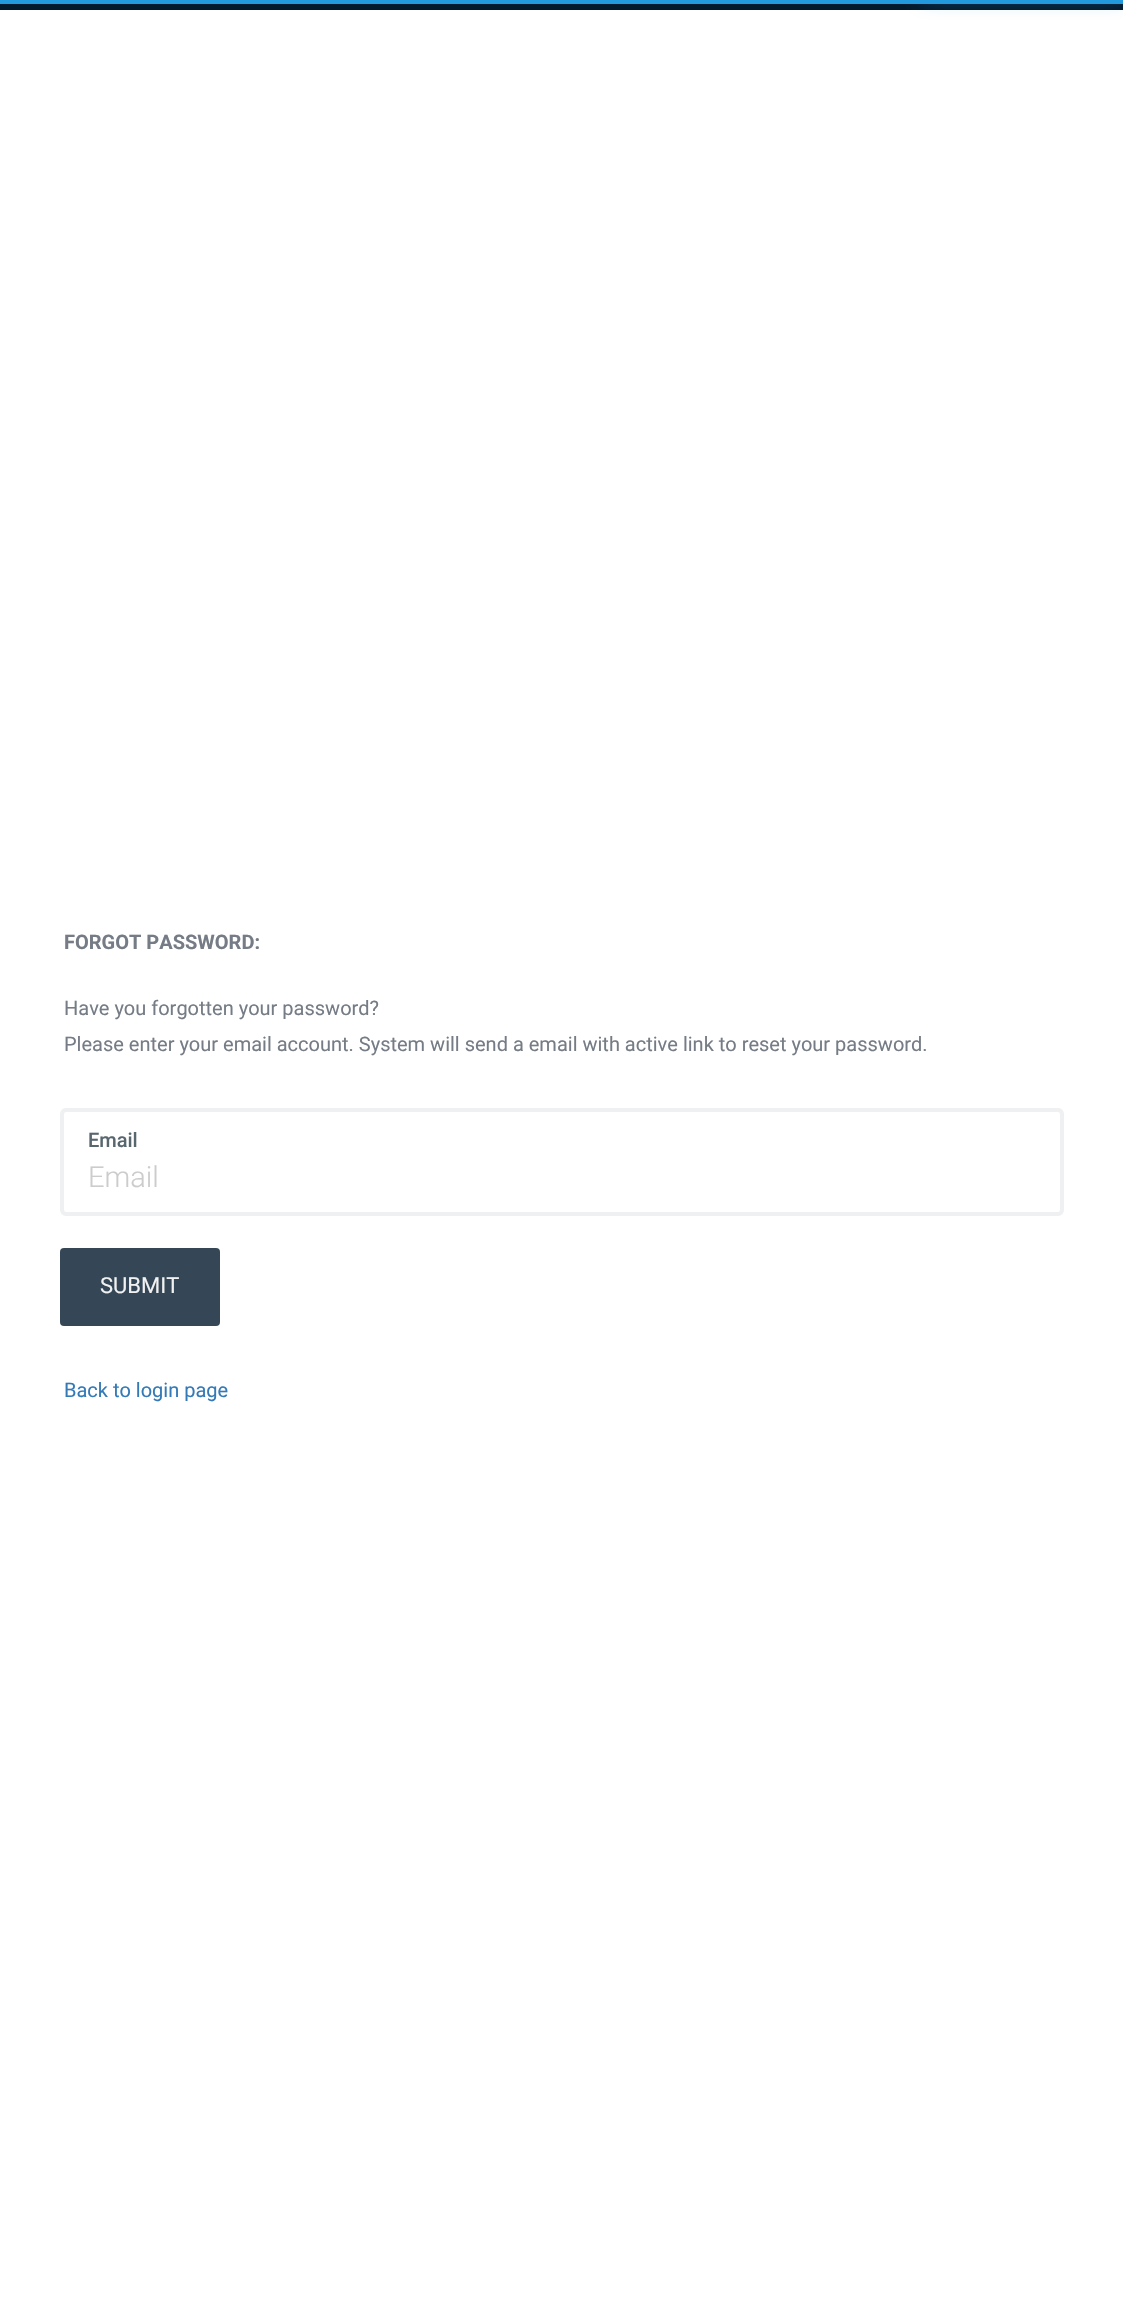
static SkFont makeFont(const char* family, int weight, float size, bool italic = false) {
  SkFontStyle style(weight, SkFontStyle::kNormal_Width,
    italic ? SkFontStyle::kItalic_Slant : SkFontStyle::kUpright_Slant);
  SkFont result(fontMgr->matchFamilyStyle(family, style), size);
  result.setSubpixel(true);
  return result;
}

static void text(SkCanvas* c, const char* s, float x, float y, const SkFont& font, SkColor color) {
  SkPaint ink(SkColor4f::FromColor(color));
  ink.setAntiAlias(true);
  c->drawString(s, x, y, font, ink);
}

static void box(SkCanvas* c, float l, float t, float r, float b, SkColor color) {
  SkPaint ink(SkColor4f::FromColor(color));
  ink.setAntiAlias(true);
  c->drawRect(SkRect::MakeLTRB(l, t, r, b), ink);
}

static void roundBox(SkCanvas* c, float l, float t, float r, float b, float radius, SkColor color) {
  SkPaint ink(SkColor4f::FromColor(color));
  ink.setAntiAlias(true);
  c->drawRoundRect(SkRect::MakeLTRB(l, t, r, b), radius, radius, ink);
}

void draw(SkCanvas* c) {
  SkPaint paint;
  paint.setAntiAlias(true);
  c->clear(0xffffffff);
  box(c, 0, 0, 1123, 4, 0xff2299dd);
  box(c, 0, 4, 1123, 10, 0xff02192d);
  paint.setColor(0xff2299dd);
  paint.setMaskFilter(SkMaskFilter::MakeBlur(kNormal_SkBlurStyle, 10));
  c->drawRect(SkRect::MakeLTRB(924, -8, 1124, -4), paint);
  paint.setMaskFilter(nullptr);
  SkFont face1 = makeFont("Roboto", 700, 20);
  text(c, "FORGOT PASSWORD:", 64, 949, face1, 0xff757c85);
  SkFont face2 = makeFont("Roboto", 400, 20);
  text(c, "Have you forgotten your password?", 64, 1015, face2, 0xff757c85);
  text(c, "Please enter your email account. System will send a email with active link to reset your password.", 64, 1051, face2, 0xff757c85);
  paint.setStyle(SkPaint::kStroke_Style);
  paint.setStrokeWidth(4);
  paint.setColor(0xffeff0f1);
  c->drawRoundRect(SkRect::MakeLTRB(62, 1110, 1062, 1214), 4, 4, paint);
  SkFont face3 = makeFont("Roboto", 500, 20);
  text(c, "Email", 88, 1147, face3, 0xff58666e);
  SkFont face4 = makeFont("Roboto", 300, 29);
  text(c, "Email", 88, 1187, face4, 0xffcccccc);
  roundBox(c, 60, 1248, 220, 1326, 4, 0xff354757);
  SkFont face5 = makeFont("Roboto", 400, 22);
  text(c, "SUBMIT", 100, 1293, face5, 0xfff1f1f1);
  text(c, "Back to login page", 64, 1397, face2, 0xff337ab7);
}
